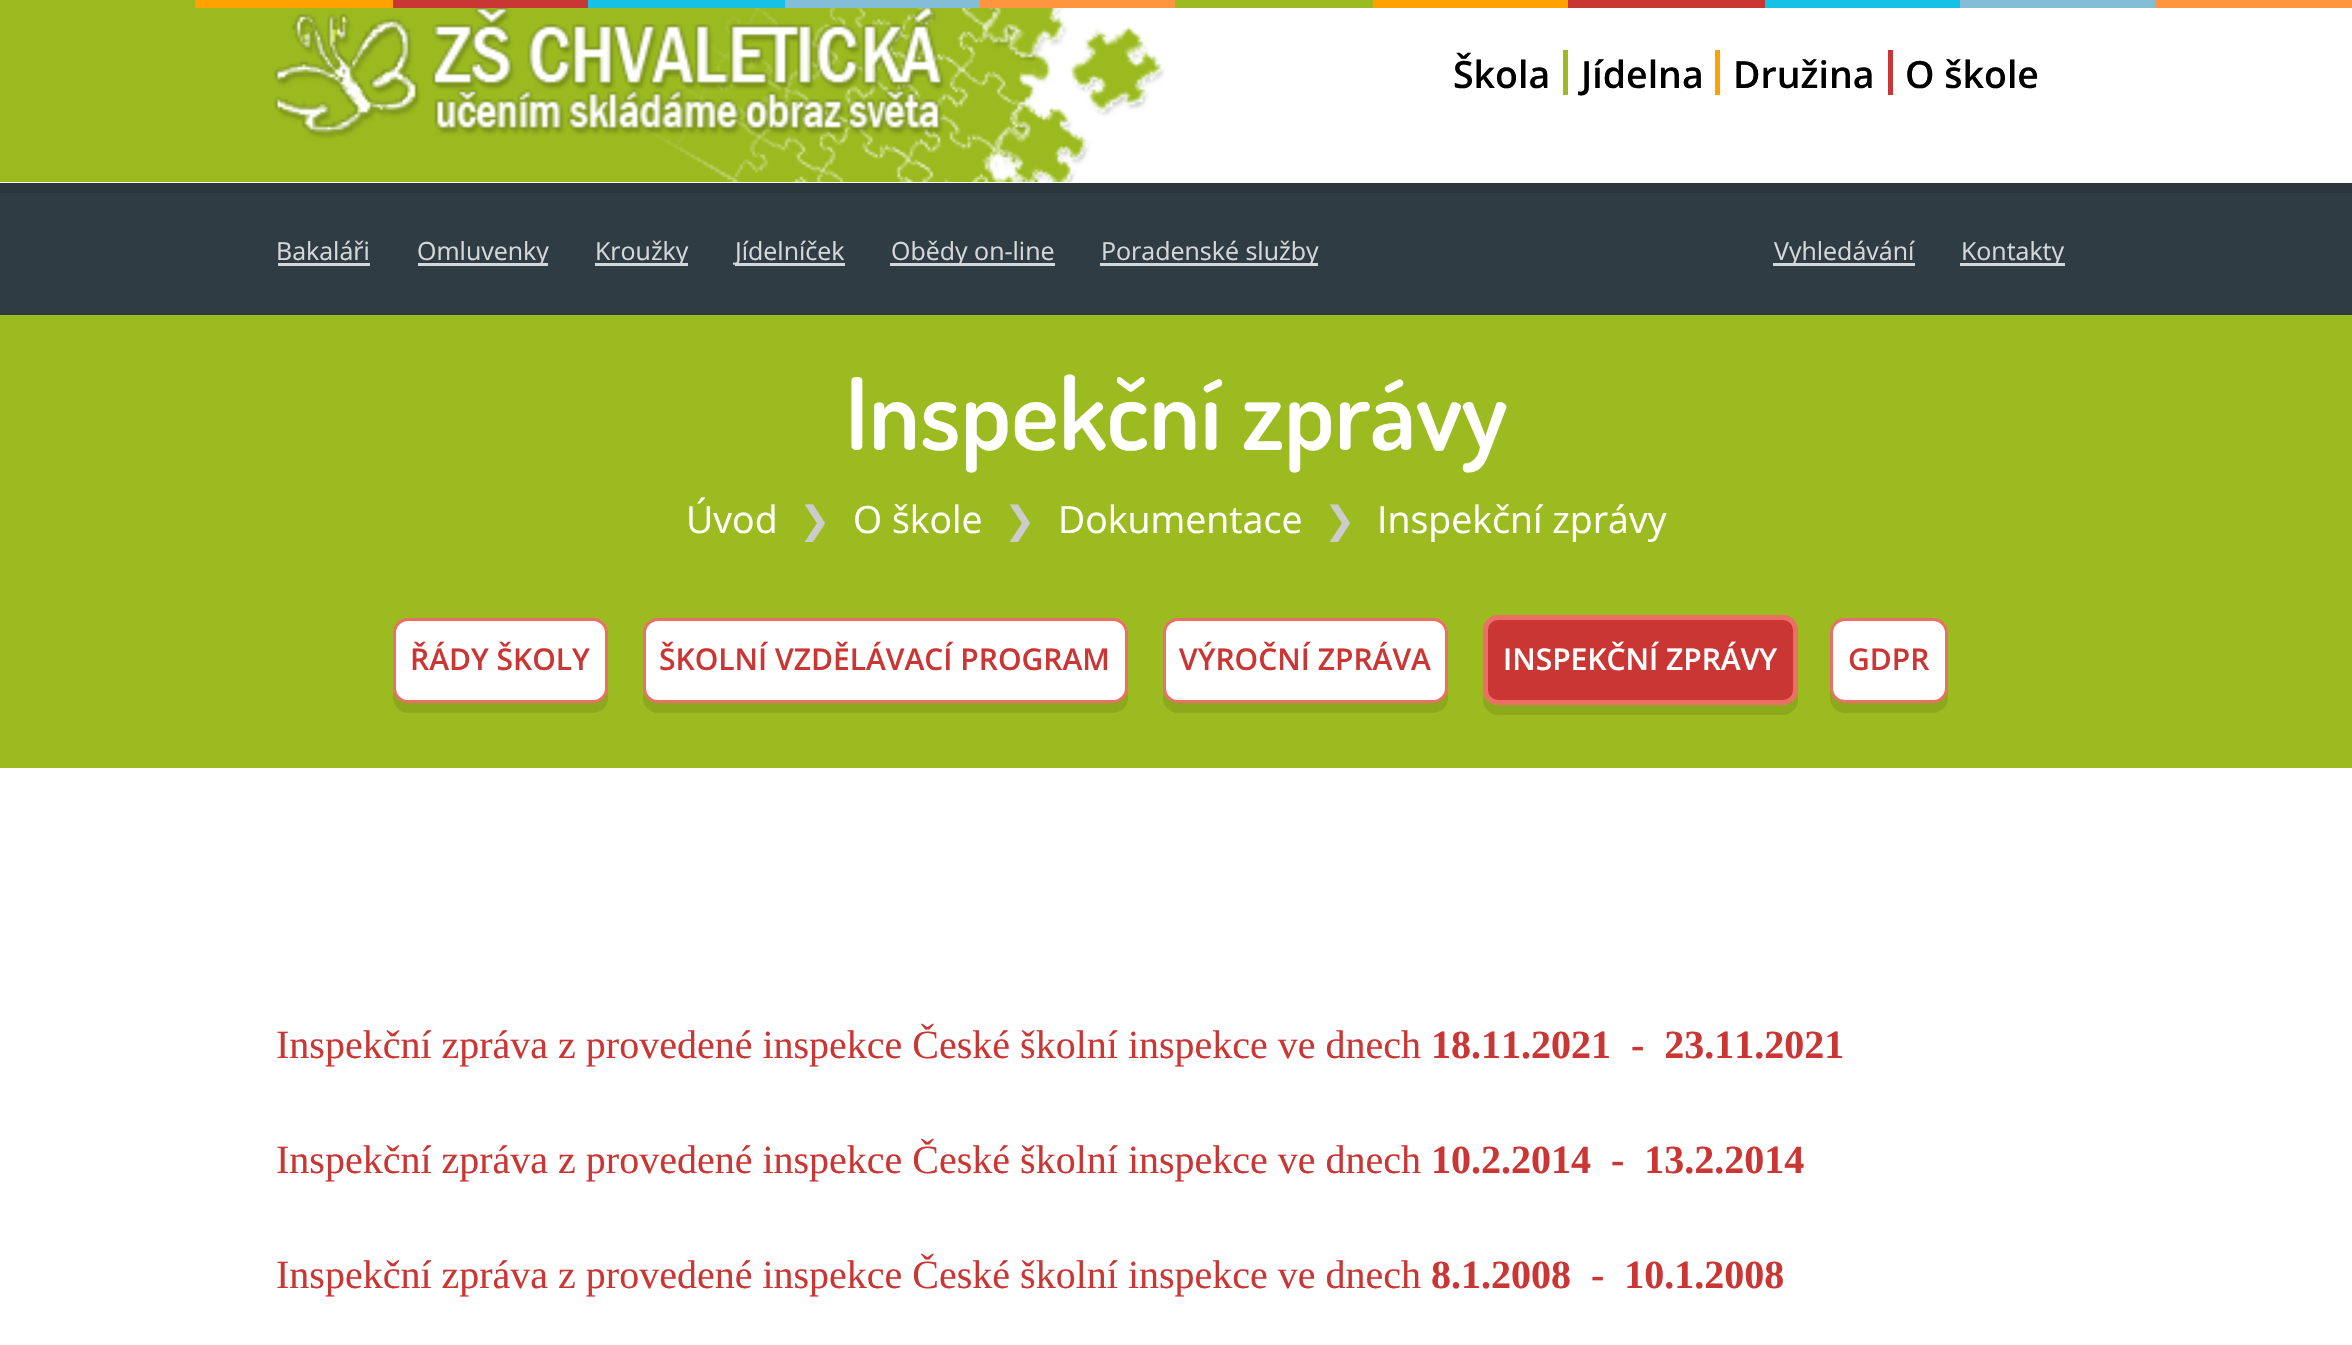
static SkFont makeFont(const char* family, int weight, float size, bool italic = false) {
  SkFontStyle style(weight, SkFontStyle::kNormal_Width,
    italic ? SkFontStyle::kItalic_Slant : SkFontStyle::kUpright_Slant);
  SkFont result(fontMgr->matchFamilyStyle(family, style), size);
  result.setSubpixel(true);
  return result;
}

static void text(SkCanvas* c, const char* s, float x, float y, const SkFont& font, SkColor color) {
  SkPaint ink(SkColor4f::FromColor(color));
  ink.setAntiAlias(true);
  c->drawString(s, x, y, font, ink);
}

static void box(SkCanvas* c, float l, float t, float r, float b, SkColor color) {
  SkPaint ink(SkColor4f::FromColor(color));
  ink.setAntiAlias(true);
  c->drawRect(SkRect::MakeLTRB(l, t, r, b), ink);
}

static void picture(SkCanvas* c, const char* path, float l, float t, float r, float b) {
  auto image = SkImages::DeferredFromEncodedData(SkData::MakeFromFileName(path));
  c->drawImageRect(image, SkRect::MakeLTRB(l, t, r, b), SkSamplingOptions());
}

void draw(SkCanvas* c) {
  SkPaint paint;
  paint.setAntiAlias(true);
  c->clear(0xffffffff);
  picture(c, "img_01.png", 0, 0, 274, 182);
  box(c, 195, 0, 393, 8, 0xffffa200);
  box(c, 393, 0, 588, 8, 0xffca3634);
  box(c, 588, 0, 785, 8, 0xff15c1e5);
  box(c, 785, 0, 980, 8, 0xff84bed6);
  box(c, 980, 0, 1175, 8, 0xffff953f);
  box(c, 1175, 0, 1373, 8, 0xff9cbb20);
  box(c, 1373, 0, 1568, 8, 0xffffa200);
  box(c, 1568, 0, 1765, 8, 0xffca3634);
  box(c, 1765, 0, 1960, 8, 0xff15c1e5);
  box(c, 1960, 0, 2155, 8, 0xff84bed6);
  box(c, 2155, 0, 2352, 8, 0xffff953f);
  box(c, 0, 183, 2352, 315, 0xff2f3c43);
  paint.setColor(0x1a000000);
  c->drawPath(SkPathBuilder().moveTo(0, 182).lineTo(0, 193).lineTo(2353, 193).lineTo(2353, -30).lineTo(2352, -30).lineTo(2352, 182).close().detach(), paint);
  box(c, 0, 182, 2352, 183, 0xffffffff);
  picture(c, "img_02.png", 274, 8, 1165, 182);
  box(c, 1563, 50, 1568, 95, 0xff9cbb20);
  SkFont face1 = makeFont("Open Sans", 600, 37.5f);
  text(c, "Škola", 1453, 88, face1, 0xff000000);
  box(c, 1715, 50, 1720, 95, 0xffffa200);
  text(c, "Jídelna", 1581, 88, face1, 0xff000000);
  box(c, 1888, 50, 1893, 95, 0xffca3634);
  text(c, "Družina", 1733, 88, face1, 0xff000000);
  text(c, "O škole", 1905, 88, face1, 0xff000000);
  SkFont face2 = makeFont("Open Sans", 400, 25);
  text(c, "Bakaláři", 276, 260, face2, 0xffd5d8d9);
  box(c, 278, 263, 370, 266, 0xffd5d8d9);
  box(c, 418, 263, 548, 266, 0xffd5d8d9);
  text(c, "Omluvenky", 417, 260, face2, 0xffd5d8d9);
  box(c, 595, 263, 688, 266, 0xffd5d8d9);
  text(c, "Kroužky", 595, 260, face2, 0xffd5d8d9);
  box(c, 735, 263, 845, 266, 0xffd5d8d9);
  text(c, "Jídelníček", 735, 260, face2, 0xffd5d8d9);
  box(c, 890, 263, 1055, 266, 0xffd5d8d9);
  text(c, "Obědy on-line", 891, 260, face2, 0xffd5d8d9);
  box(c, 1100, 263, 1318, 266, 0xffd5d8d9);
  text(c, "Poradenské služby", 1101, 260, face2, 0xffd5d8d9);
  box(c, 1773, 263, 1915, 266, 0xffd5d8d9);
  text(c, "Vyhledávání", 1774, 260, face2, 0xffd5d8d9);
  box(c, 1960, 263, 2065, 266, 0xffd5d8d9);
  text(c, "Kontakty", 1961, 260, face2, 0xffd5d8d9);
  box(c, 0, 315, 2352, 768, 0xff9cbb20);
  SkFont face3 = makeFont("Dosis", 600, 100);
  text(c, "Inspekční zprávy", 845, 450, face3, 0xffffffff);
  SkFont face4 = makeFont("Open Sans", 400, 37.5f);
  text(c, "Úvod", 686, 533, face4, 0xffffffff);
  SkFont face5 = makeFont("DejaVu Sans", 400, 37.5f);
  text(c, "❯", 799, 533, face5, 0xffcccccc);
  text(c, "O škole", 853, 533, face4, 0xffffffff);
  text(c, "❯", 1004, 533, face5, 0xffcccccc);
  text(c, "Dokumentace", 1058, 533, face4, 0xffffffff);
  text(c, "❯", 1324, 533, face5, 0xffcccccc);
  text(c, "Inspekční zprávy", 1377, 533, face4, 0xffffffff);
  paint.setColor(0xff8ca81d);
  c->drawPath(SkPathBuilder().moveTo(393, 691).lineTo(393, 698).cubicTo(393, 706, 400, 713, 408, 713).lineTo(593, 713).cubicTo(601, 713, 608, 706, 608, 698).lineTo(608, 643).lineTo(608, 639).lineTo(608, 688).cubicTo(608, 696, 601, 702, 592, 702).lineTo(408, 702).cubicTo(401, 702, 395, 698, 393, 691).close().detach(), paint);
  paint.setColor(0xffffffff);
  c->drawRoundRect(SkRect::MakeLTRB(394.5f, 619.5f, 606.5f, 701.5f), 13.5f, 13.5f, paint);
  paint.setStyle(SkPaint::kStroke_Style);
  paint.setStrokeWidth(3);
  paint.setColor(0xffea7066);
  c->drawRoundRect(SkRect::MakeLTRB(394.5f, 619.5f, 606.5f, 701.5f), 13.5f, 13.5f, paint);
  SkFont face6 = makeFont("Open Sans", 600, 30);
  text(c, "ŘÁDY ŠKOLY", 410, 670, face6, 0xffca3634);
  paint.setStyle(SkPaint::kFill_Style);
  paint.setColor(0xff8ca81d);
  c->drawPath(SkPathBuilder().moveTo(643, 691).lineTo(643, 698).cubicTo(643, 706, 650, 713, 658, 713).lineTo(1113, 713).cubicTo(1121, 713, 1128, 706, 1128, 698).lineTo(1128, 643).lineTo(1128, 639).lineTo(1128, 688).cubicTo(1128, 696, 1121, 702, 1112, 702).lineTo(658, 702).cubicTo(651, 702, 645, 698, 643, 691).close().detach(), paint);
  paint.setColor(0xffffffff);
  c->drawRoundRect(SkRect::MakeLTRB(644.5f, 619.5f, 1126.5f, 701.5f), 13.5f, 13.5f, paint);
  paint.setStyle(SkPaint::kStroke_Style);
  paint.setColor(0xffea7066);
  c->drawRoundRect(SkRect::MakeLTRB(644.5f, 619.5f, 1126.5f, 701.5f), 13.5f, 13.5f, paint);
  text(c, "ŠKOLNÍ VZDĚLÁVACÍ PROGRAM", 659, 670, face6, 0xffca3634);
  paint.setStyle(SkPaint::kFill_Style);
  paint.setColor(0xff8ca81d);
  c->drawPath(SkPathBuilder().moveTo(1163, 691).lineTo(1163, 698).cubicTo(1163, 706, 1170, 713, 1178, 713).lineTo(1433, 713).cubicTo(1441, 713, 1448, 706, 1448, 698).lineTo(1448, 643).lineTo(1448, 639).lineTo(1448, 688).cubicTo(1448, 696, 1441, 702, 1432, 702).lineTo(1178, 702).cubicTo(1171, 702, 1165, 698, 1163, 691).close().detach(), paint);
  paint.setColor(0xffffffff);
  c->drawRoundRect(SkRect::MakeLTRB(1164.5f, 619.5f, 1446.5f, 701.5f), 13.5f, 13.5f, paint);
  paint.setStyle(SkPaint::kStroke_Style);
  paint.setColor(0xffea7066);
  c->drawRoundRect(SkRect::MakeLTRB(1164.5f, 619.5f, 1446.5f, 701.5f), 13.5f, 13.5f, paint);
  text(c, "VÝROČNÍ ZPRÁVA", 1179, 670, face6, 0xffca3634);
  paint.setStyle(SkPaint::kFill_Style);
  paint.setColor(0xff8ca81d);
  c->drawPath(SkPathBuilder().moveTo(1483, 694).lineTo(1483, 700).cubicTo(1483, 708, 1490, 715, 1498, 715).lineTo(1783, 715).cubicTo(1791, 715, 1798, 708, 1798, 700).lineTo(1798, 640).lineTo(1798, 636).lineTo(1798, 690).cubicTo(1798, 698, 1791, 705, 1782, 705).lineTo(1498, 705).cubicTo(1491, 705, 1485, 700, 1483, 694).close().detach(), paint);
  paint.setColor(0xffca3634);
  c->drawRoundRect(SkRect::MakeLTRB(1485.5f, 617.5f, 1795.5f, 702.5f), 12.5f, 12.5f, paint);
  paint.setStyle(SkPaint::kStroke_Style);
  paint.setStrokeWidth(5);
  paint.setColor(0xffea7066);
  c->drawRoundRect(SkRect::MakeLTRB(1485.5f, 617.5f, 1795.5f, 702.5f), 12.5f, 12.5f, paint);
  text(c, "INSPEKČNÍ ZPRÁVY", 1503, 670, face6, 0xffffffff);
  paint.setStyle(SkPaint::kFill_Style);
  paint.setColor(0xff8ca81d);
  c->drawPath(SkPathBuilder().moveTo(1830, 688).lineTo(1830, 698).cubicTo(1830, 706, 1837, 713, 1845, 713).lineTo(1933, 713).cubicTo(1941, 713, 1948, 706, 1948, 698).lineTo(1948, 643).lineTo(1948, 639).lineTo(1948, 688).cubicTo(1948, 696, 1941, 702, 1932, 702).lineTo(1845, 702).cubicTo(1837, 702, 1830, 696, 1830, 688).close().detach(), paint);
  paint.setColor(0xffffffff);
  c->drawRoundRect(SkRect::MakeLTRB(1831.5f, 619.5f, 1946.5f, 701.5f), 13.5f, 13.5f, paint);
  paint.setStyle(SkPaint::kStroke_Style);
  paint.setStrokeWidth(3);
  paint.setColor(0xffea7066);
  c->drawRoundRect(SkRect::MakeLTRB(1831.5f, 619.5f, 1946.5f, 701.5f), 13.5f, 13.5f, paint);
  text(c, "GDPR", 1848, 670, face6, 0xffca3634);
  SkFont face7 = makeFont("Liberation Serif", 400, 40);
  text(c, "Inspekční zpráva z provedené inspekce České školní inspekce ve dnech", 276, 1058, face7, 0xffca3634);
  SkFont face8 = makeFont("Liberation Serif", 700, 40);
  text(c, "18.11.2021  -  23.11.2021", 1431, 1058, face8, 0xffca3634);
  text(c, "Inspekční zpráva z provedené inspekce České školní inspekce ve dnech", 276, 1173, face7, 0xffca3634);
  text(c, "10.2.2014  -  13.2.2014", 1431, 1173, face8, 0xffca3634);
  text(c, "Inspekční zpráva z provedené inspekce České školní inspekce ve dnech", 276, 1288, face7, 0xffca3634);
  text(c, "8.1.2008  -  10.1.2008", 1431, 1288, face8, 0xffca3634);
}
